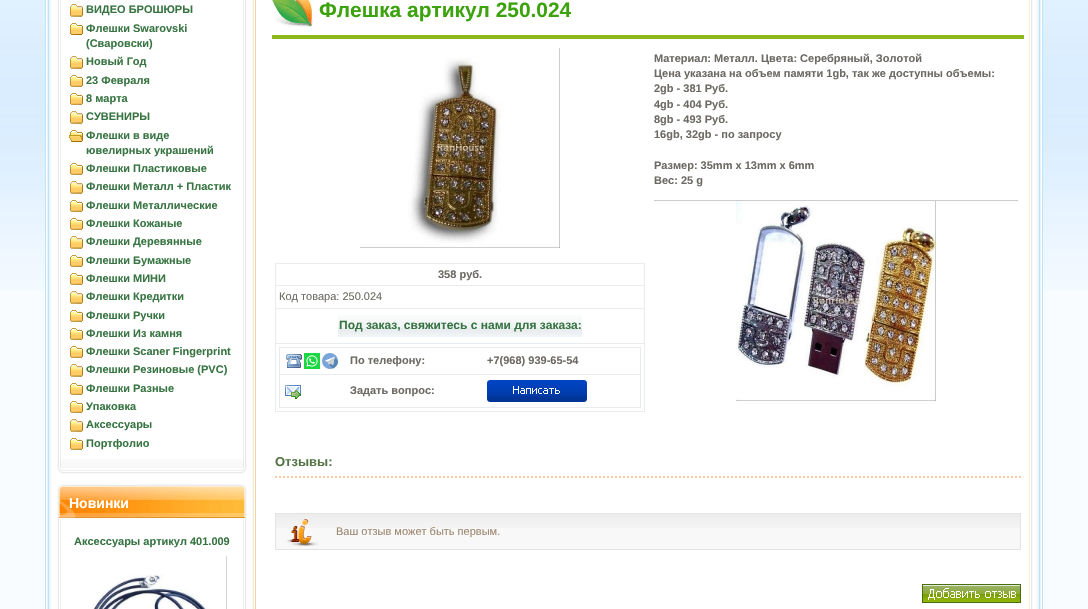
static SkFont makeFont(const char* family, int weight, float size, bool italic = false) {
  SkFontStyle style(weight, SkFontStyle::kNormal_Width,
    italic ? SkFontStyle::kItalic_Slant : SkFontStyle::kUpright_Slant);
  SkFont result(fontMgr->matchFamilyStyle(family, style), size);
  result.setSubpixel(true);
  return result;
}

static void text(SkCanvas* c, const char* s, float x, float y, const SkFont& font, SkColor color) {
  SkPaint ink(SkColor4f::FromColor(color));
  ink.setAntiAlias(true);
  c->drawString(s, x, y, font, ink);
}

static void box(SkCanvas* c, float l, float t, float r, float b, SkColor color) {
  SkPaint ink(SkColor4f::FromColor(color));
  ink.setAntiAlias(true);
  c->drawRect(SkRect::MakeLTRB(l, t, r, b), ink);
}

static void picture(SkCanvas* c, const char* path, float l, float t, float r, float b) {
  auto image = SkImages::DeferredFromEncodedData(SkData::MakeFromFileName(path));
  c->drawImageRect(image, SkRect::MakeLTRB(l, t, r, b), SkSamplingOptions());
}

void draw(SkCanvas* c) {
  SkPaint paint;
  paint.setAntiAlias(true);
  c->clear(0xfff8fcff);
  picture(c, "img_01.png", 0, 0, 1088, 291);
  box(c, 256, 0, 1029, 609, 0xffffffff);
  picture(c, "img_02.png", 45, 0, 256, 609);
  picture(c, "img_03.png", 1029, 0, 1043, 609);
  picture(c, "img_04.png", 57, 0, 247, 459);
  picture(c, "img_05.png", 57, 459, 247, 474);
  picture(c, "img_06.png", 70, 4, 83, 17);
  SkFont face1 = makeFont("Liberation Sans", 700, 11);
  text(c, "ВИДЕО БРОШЮРЫ", 86, 13, face1, 0xff387543);
  picture(c, "img_07.png", 70, 23, 83, 35);
  text(c, "Флешки Swarovski", 86, 32, face1, 0xff387543);
  text(c, "(Сваровски)", 86, 47, face1, 0xff387543);
  picture(c, "img_06.png", 70, 56, 83, 69);
  text(c, "Новый Год", 86, 65, face1, 0xff387543);
  picture(c, "img_08.png", 70, 75, 83, 87);
  text(c, "23 Февраля", 86, 84, face1, 0xff387543);
  picture(c, "img_08.png", 70, 93, 83, 105);
  text(c, "8 марта", 86, 102, face1, 0xff387543);
  picture(c, "img_06.png", 70, 111, 83, 124);
  text(c, "СУВЕНИРЫ", 86, 120, face1, 0xff387543);
  picture(c, "img_09.png", 69, 130, 83, 142);
  text(c, "Флешки в виде", 86, 139, face1, 0xff387543);
  text(c, "ювелирных украшений", 86, 154, face1, 0xff387543);
  picture(c, "img_08.png", 70, 163, 83, 175);
  text(c, "Флешки Пластиковые", 86, 172, face1, 0xff387543);
  picture(c, "img_06.png", 70, 181, 83, 194);
  text(c, "Флешки Металл + Пластик", 86, 190, face1, 0xff387543);
  picture(c, "img_08.png", 70, 200, 83, 212);
  text(c, "Флешки Металлические", 86, 209, face1, 0xff387543);
  picture(c, "img_08.png", 70, 218, 83, 230);
  text(c, "Флешки Кожаные", 86, 227, face1, 0xff387543);
  picture(c, "img_06.png", 70, 236, 83, 249);
  text(c, "Флешки Деревянные", 86, 245, face1, 0xff387543);
  picture(c, "img_08.png", 70, 255, 83, 267);
  text(c, "Флешки Бумажные", 86, 264, face1, 0xff387543);
  picture(c, "img_08.png", 70, 273, 83, 285);
  text(c, "Флешки МИНИ", 86, 282, face1, 0xff387543);
  picture(c, "img_06.png", 70, 291, 83, 304);
  text(c, "Флешки Кредитки", 86, 300, face1, 0xff387543);
  picture(c, "img_08.png", 70, 310, 83, 322);
  text(c, "Флешки Ручки", 86, 319, face1, 0xff387543);
  picture(c, "img_08.png", 70, 328, 83, 340);
  text(c, "Флешки Из камня", 86, 337, face1, 0xff387543);
  picture(c, "img_08.png", 70, 346, 83, 358);
  text(c, "Флешки Scaner Fingerprint", 86, 355, face1, 0xff387543);
  picture(c, "img_06.png", 70, 364, 83, 377);
  text(c, "Флешки Резиновые (PVC)", 86, 373, face1, 0xff387543);
  picture(c, "img_08.png", 70, 383, 83, 395);
  text(c, "Флешки Разные", 86, 392, face1, 0xff387543);
  picture(c, "img_08.png", 70, 401, 83, 413);
  text(c, "Упаковка", 86, 410, face1, 0xff387543);
  picture(c, "img_06.png", 70, 419, 83, 432);
  text(c, "Аксессуары", 86, 428, face1, 0xff387543);
  picture(c, "img_08.png", 70, 438, 83, 450);
  text(c, "Портфолио", 86, 447, face1, 0xff387543);
  picture(c, "img_10.png", 57, 519, 247, 609);
  picture(c, "img_11.png", 57, 484, 247, 519);
  SkFont face2 = makeFont("Liberation Sans", 700, 14);
  text(c, "Новинки", 69, 508, face2, 0xffffffff);
  text(c, "Аксессуары артикул 401.009", 74, 545, face1, 0xff387543);
  picture(c, "img_12.png", 92, 556, 227, 609);
  picture(c, "img_13.png", 272, 0, 313, 27);
  SkFont face3 = makeFont("Liberation Sans", 700, 20.9f);
  text(c, "Флешка артикул 250.024", 319, 17, face3, 0xff3ca20e);
  box(c, 272, 35, 1024, 39, 0xff8db819);
  text(c, "Материал: Металл. Цвета: Серебряный, Золотой", 654, 62, face1, 0xff6d6a65);
  text(c, "Цена указана на объем памяти 1gb, так же доступны объемы:", 654, 77, face1, 0xff6d6a65);
  text(c, "2gb - 381 Руб.", 654, 92, face1, 0xff6d6a65);
  text(c, "4gb - 404 Руб.", 654, 108, face1, 0xff6d6a65);
  text(c, "8gb - 493 Руб.", 654, 123, face1, 0xff6d6a65);
  text(c, "16gb, 32gb - по запросу", 654, 138, face1, 0xff6d6a65);
  text(c, "Размер: 35mm x 13mm x 6mm", 654, 169, face1, 0xff6d6a65);
  text(c, "Вес: 25 g", 654, 184, face1, 0xff6d6a65);
  box(c, 654, 200, 1018, 201, 0xffcccccc);
  picture(c, "img_14.png", 736, 201, 936, 401);
  picture(c, "img_15.png", 360, 48, 560, 248);
  box(c, 275, 263, 645, 412, 0xffe8ecee);
  box(c, 276, 264, 644, 285, 0xffffffff);
  text(c, "358 руб.", 438, 278, face1, 0xff6d6a65);
  box(c, 276, 286, 644, 308, 0xffffffff);
  SkFont face4 = makeFont("Liberation Sans", 400, 11);
  text(c, "Код товара: 250.024", 279, 300, face4, 0xff6d6a65);
  box(c, 276, 309, 644, 343, 0xffffffff);
  picture(c, "img_16.png", 338, 315, 582, 337);
  SkFont face5 = makeFont("Liberation Sans", 700, 12);
  text(c, "Под заказ, свяжитесь с нами для заказа:", 339, 329, face5, 0xff387543);
  box(c, 276, 344, 644, 411, 0xffffffff);
  box(c, 279, 347, 641, 408, 0xffe8ecee);
  box(c, 280, 348, 640, 374, 0xffffffff);
  picture(c, "img_17.png", 286, 353, 338, 369);
  text(c, "По телефону:", 350, 364, face1, 0xff6d6a65);
  text(c, "+7(968) 939-65-54", 487, 364, face1, 0xff6d6a65);
  box(c, 280, 375, 640, 407, 0xffffffff);
  picture(c, "img_18.png", 285, 385, 301, 399);
  text(c, "Задать вопрос:", 350, 394, face1, 0xff6d6a65);
  picture(c, "img_19.png", 487, 380, 587, 402);
  picture(c, "img_20.png", 275, 476, 1021, 478);
  SkFont face6 = makeFont("Liberation Sans", 700, 13);
  text(c, "Отзывы:", 275, 466, face6, 0xff547446);
  box(c, 276, 528, 1020, 549, 0xfff8f8f8);
  picture(c, "img_21.png", 276, 514, 1020, 528);
  paint.setStyle(SkPaint::kStroke_Style);
  paint.setStrokeWidth(1);
  paint.setColor(0xffe4e4e4);
  c->drawRect(SkRect::MakeLTRB(275.5f, 513.5f, 1020.5f, 549.5f), paint);
  picture(c, "img_22.png", 286, 519, 318, 546);
  text(c, "Ваш отзыв может быть первым.", 336, 535, face4, 0xff9d8770);
  picture(c, "img_23.png", 922, 584, 1021, 603);
}
